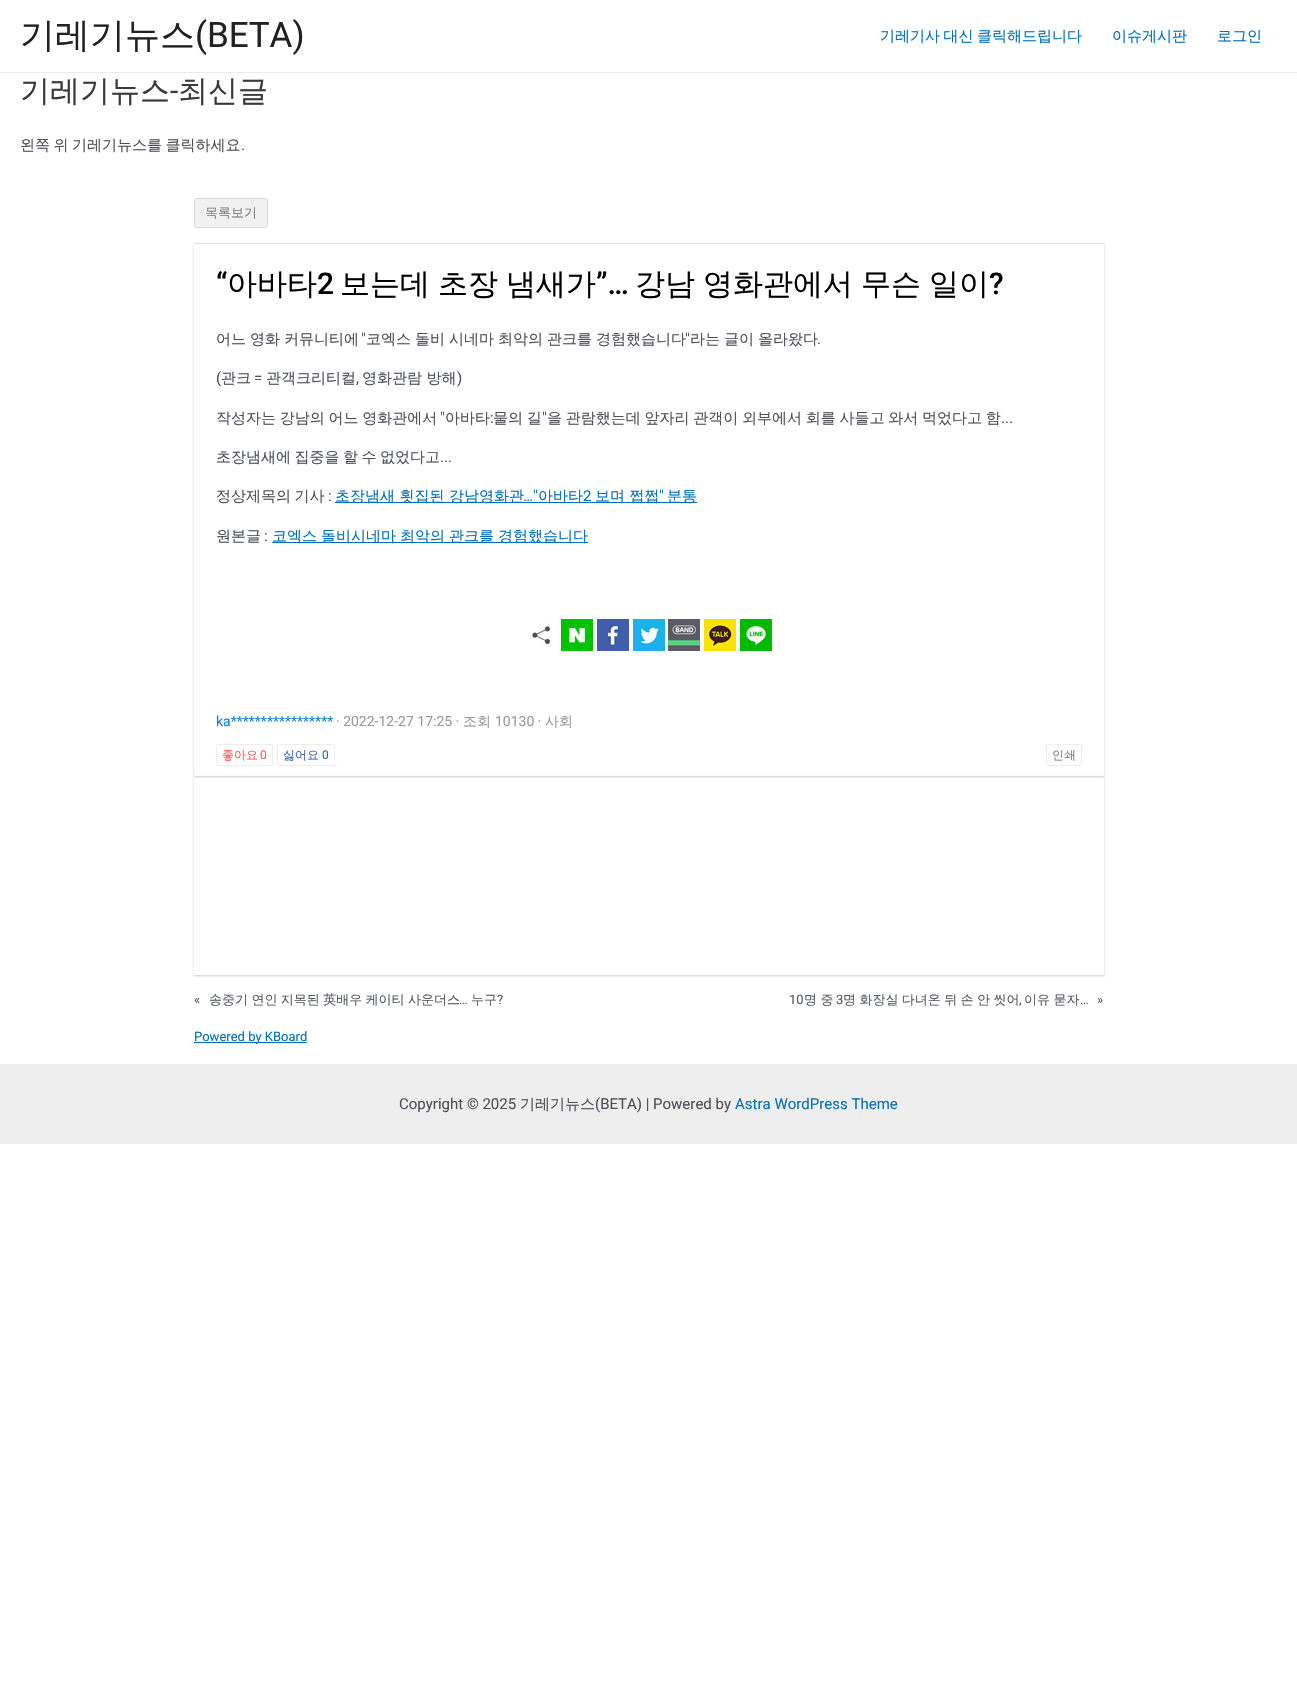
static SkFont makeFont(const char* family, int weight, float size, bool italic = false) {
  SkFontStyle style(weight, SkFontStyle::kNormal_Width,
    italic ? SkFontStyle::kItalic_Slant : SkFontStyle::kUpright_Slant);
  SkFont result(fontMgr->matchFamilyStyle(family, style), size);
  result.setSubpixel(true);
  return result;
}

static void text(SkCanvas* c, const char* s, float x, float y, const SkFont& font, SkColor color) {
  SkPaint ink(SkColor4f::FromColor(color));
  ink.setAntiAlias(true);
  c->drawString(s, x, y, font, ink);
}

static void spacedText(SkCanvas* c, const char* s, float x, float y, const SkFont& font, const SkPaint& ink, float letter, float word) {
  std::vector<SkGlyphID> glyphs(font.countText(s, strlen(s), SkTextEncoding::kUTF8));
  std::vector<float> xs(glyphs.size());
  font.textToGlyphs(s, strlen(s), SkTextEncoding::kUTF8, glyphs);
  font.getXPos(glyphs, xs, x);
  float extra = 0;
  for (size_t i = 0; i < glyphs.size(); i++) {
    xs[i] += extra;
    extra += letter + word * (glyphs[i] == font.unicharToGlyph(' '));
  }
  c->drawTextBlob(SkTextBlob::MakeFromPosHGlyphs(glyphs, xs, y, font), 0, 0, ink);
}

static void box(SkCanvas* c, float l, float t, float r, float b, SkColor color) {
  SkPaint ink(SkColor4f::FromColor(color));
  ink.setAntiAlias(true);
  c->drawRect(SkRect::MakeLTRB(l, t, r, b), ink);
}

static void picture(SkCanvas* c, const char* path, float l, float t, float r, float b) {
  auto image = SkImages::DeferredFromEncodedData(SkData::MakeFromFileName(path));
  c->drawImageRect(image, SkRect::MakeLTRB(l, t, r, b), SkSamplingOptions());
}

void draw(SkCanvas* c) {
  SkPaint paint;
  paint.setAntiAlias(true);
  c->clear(0xffffffff);
  box(c, 0, 72, 1297, 73, 0xffeaeaea);
  SkFont face1 = makeFont("WenQuanYi Zen Hei", 500, 35);
  text(c, "기레기뉴스", 20, 47, face1, 0xff222222);
  SkFont face2 = makeFont("Roboto", 400, 35);
  text(c, "(BETA)", 195, 47, face2, 0xff222222);
  SkFont face3 = makeFont("WenQuanYi Zen Hei", 500, 15);
  paint.setColor(0xff0170b9);
  spacedText(c, "기레기사 대신 클릭해드립니다", 880, 41, face3, paint, 0, -1);
  text(c, "이슈게시판", 1112, 41, face3, 0xff0170b9);
  text(c, "로그인", 1217, 41, face3, 0xff0170b9);
  SkFont face4 = makeFont("WenQuanYi Zen Hei", 500, 30);
  text(c, "기레기뉴스", 20, 101, face4, 0xff3a3a3a);
  SkFont face5 = makeFont("Roboto", 400, 30);
  text(c, "-", 170, 101, face5, 0xff3a3a3a);
  text(c, "최신글", 178, 101, face4, 0xff3a3a3a);
  paint.setColor(0xff4b4f58);
  spacedText(c, "왼쪽 위 기레기뉴스를 클릭하세요", 20, 150, face3, paint, 0, -1);
  SkFont face6 = makeFont("Roboto", 400, 15);
  text(c, ".", 241, 150, face6, 0xff4b4f58);
  paint.setColor(0xfff1f1f1);
  c->drawRoundRect(SkRect::MakeLTRB(194.5f, 198.5f, 267.5f, 227.5f), 2.5f, 2.5f, paint);
  paint.setStyle(SkPaint::kStroke_Style);
  paint.setStrokeWidth(1);
  paint.setColor(0xffd9d9d9);
  c->drawRoundRect(SkRect::MakeLTRB(194.5f, 198.5f, 267.5f, 227.5f), 2.5f, 2.5f, paint);
  SkFont face7 = makeFont("WenQuanYi Zen Hei", 500, 13);
  text(c, "목록보기", 205, 217, face7, 0xff808080);
  c->save();
  c->clipPath(SkPathBuilder(SkPathFillType::kEvenOdd).moveTo(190, 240).lineTo(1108, 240).lineTo(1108, 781).lineTo(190, 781).close().moveTo(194, 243).lineTo(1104, 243).lineTo(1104, 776).lineTo(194, 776).close().detach(), true);
  paint.setStyle(SkPaint::kFill_Style);
  paint.setColor(0xffc9cccd);
  paint.setMaskFilter(SkMaskFilter::MakeBlur(kNormal_SkBlurStyle, 1));
  c->drawRect(SkRect::MakeLTRB(194, 244, 1104, 777), paint);
  paint.setMaskFilter(nullptr);
  c->restore();
  box(c, 194, 243, 1104, 244, 0xffe0e0e0);
  SkFont face8 = makeFont("Roboto", 500, 30);
  text(c, "“", 216, 294, face8, 0xff000000);
  text(c, "아바타", 227, 294, face4, 0xff000000);
  text(c, "2", 317, 294, face8, 0xff000000);
  paint.setColor(0xff000000);
  spacedText(c, "보는데 초장 냄새가", 340, 294, face4, paint, 0, -1);
  text(c, "”…", 596, 294, face8, 0xff000000);
  spacedText(c, "강남 영화관에서 무슨 일이", 635, 294, face4, paint, 0, -1);
  text(c, "?", 989, 294, face8, 0xff000000);
  paint.setColor(0xff4b4f58);
  spacedText(c, "어느 영화 커뮤니티에", 216, 344, face3, paint, 0, -0.5f);
  text(c, "\"", 361, 344, face6, 0xff4b4f58);
  spacedText(c, "코엑스 돌비 시네마 최악의 관크를 경험했습니다", 366, 344, face3, paint, 0, -0.5f);
  text(c, "\"", 685, 344, face6, 0xff4b4f58);
  spacedText(c, "라는 글이 올라왔다", 690, 344, face3, paint, 0, -0.5f);
  text(c, ".", 817, 344, face6, 0xff4b4f58);
  text(c, "(", 216, 383, face6, 0xff4b4f58);
  text(c, "관크", 221, 383, face3, 0xff4b4f58);
  text(c, "=", 254, 383, face6, 0xff4b4f58);
  text(c, "관객크리티컬", 266, 383, face3, 0xff4b4f58);
  text(c, "영화관람 방해", 362, 383, face3, 0xff4b4f58);
  text(c, ")", 457, 383, face6, 0xff4b4f58);
  text(c, ",", 356, 383, face6, 0xff4b4f58);
  spacedText(c, "작성자는 강남의 어느 영화관에서", 216, 423, face3, paint, 0, -0.75f);
  text(c, "\"", 440, 423, face6, 0xff4b4f58);
  text(c, "아바타", 445, 423, face3, 0xff4b4f58);
  text(c, ":", 490, 423, face6, 0xff4b4f58);
  spacedText(c, "물의 길", 493, 423, face3, paint, 0, -0.75f);
  text(c, "\"", 542, 423, face6, 0xff4b4f58);
  spacedText(c, "을 관람했는데 앞자리 관객이 외부에서 회를 사들고 와서 먹었다고 함", 547, 423, face3, paint, 0, -0.75f);
  text(c, "...", 1001, 423, face6, 0xff4b4f58);
  spacedText(c, "초장냄새에 집중을 할 수 없었다고", 216, 462, face3, paint, 0, -1);
  text(c, "...", 440, 462, face6, 0xff4b4f58);
  spacedText(c, "정상제목의 기사", 216, 501, face3, paint, 0, -1);
  text(c, ":", 328, 501, face6, 0xff4b4f58);
  box(c, 335, 502, 697, 503, 0xff0170b9);
  text(c, "초장냄새 횟집된 강남영화관", 335, 501, face3, 0xff0170b9);
  text(c, "…\"", 523, 501, face6, 0xff0170b9);
  text(c, "아바타", 538, 501, face3, 0xff0170b9);
  text(c, "2", 583, 501, face6, 0xff0170b9);
  text(c, "보며 쩝쩝", 595, 501, face3, 0xff0170b9);
  text(c, "\"", 659, 501, face6, 0xff0170b9);
  text(c, "분통", 667, 501, face3, 0xff0170b9);
  text(c, "원본글", 216, 541, face3, 0xff4b4f58);
  text(c, ":", 264, 541, face6, 0xff4b4f58);
  box(c, 272, 542, 588, 543, 0xff0170b9);
  paint.setColor(0xff0170b9);
  spacedText(c, "코엑스 돌비시네마 최악의 관크를 경험했습니다", 272, 541, face3, paint, 0, -0.5f);
  picture(c, "img_01.png", 532, 626, 550, 644);
  picture(c, "img_02.png", 561, 619, 593, 651);
  picture(c, "img_03.png", 597, 619, 629, 651);
  picture(c, "img_04.png", 633, 619, 665, 651);
  picture(c, "img_05.png", 668, 619, 700, 651);
  picture(c, "img_06.png", 704, 619, 736, 651);
  picture(c, "img_07.png", 740, 619, 772, 651);
  SkFont face9 = makeFont("Roboto", 400, 14);
  text(c, "ka*****************", 216, 726, face9, 0xff1382ce);
  text(c, "· 2022-12-27 17:25 ·", 336, 726, face9, 0xff999999);
  SkFont face10 = makeFont("WenQuanYi Zen Hei", 500, 14);
  text(c, "조회", 463, 726, face10, 0xff999999);
  text(c, "10130 ·", 495, 726, face9, 0xff999999);
  text(c, "사회", 545, 726, face10, 0xff999999);
  paint.setStyle(SkPaint::kStroke_Style);
  paint.setColor(0xffededed);
  c->drawRoundRect(SkRect::MakeLTRB(216.5f, 744.5f, 272.5f, 765.5f), 1.5f, 1.5f, paint);
  SkFont face11 = makeFont("WenQuanYi Zen Hei", 500, 12);
  text(c, "좋아요", 222, 759, face11, 0xffff5959);
  SkFont face12 = makeFont("Roboto", 400, 12);
  text(c, "0", 260, 759, face12, 0xffff5959);
  c->drawRoundRect(SkRect::MakeLTRB(277.5f, 744.5f, 334.5f, 765.5f), 1.5f, 1.5f, paint);
  text(c, "싫어요", 283, 759, face11, 0xff3d62aa);
  text(c, "0", 322, 759, face12, 0xff3d62aa);
  c->drawRoundRect(SkRect::MakeLTRB(1046.5f, 744.5f, 1081.5f, 765.5f), 1.5f, 1.5f, paint);
  text(c, "인쇄", 1052, 759, face11, 0xff808080);
  c->save();
  c->clipPath(SkPathBuilder(SkPathFillType::kEvenOdd).moveTo(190, 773).lineTo(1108, 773).lineTo(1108, 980).lineTo(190, 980).close().moveTo(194, 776).lineTo(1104, 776).lineTo(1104, 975).lineTo(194, 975).close().detach(), true);
  paint.setStyle(SkPaint::kFill_Style);
  paint.setColor(0xffc9cccd);
  paint.setMaskFilter(SkMaskFilter::MakeBlur(kNormal_SkBlurStyle, 1));
  c->drawRect(SkRect::MakeLTRB(194, 777, 1104, 976), paint);
  paint.setMaskFilter(nullptr);
  c->restore();
  SkFont face13 = makeFont("Roboto", 400, 13);
  text(c, "«", 194, 1004, face13, 0xff545861);
  paint.setColor(0xff545861);
  spacedText(c, "송중기 연인 지목된 英배우 케이티 사운더스", 209, 1004, face7, paint, 0, -0.5f);
  text(c, "…", 459, 1004, face13, 0xff545861);
  text(c, "누구", 471, 1004, face7, 0xff545861);
  text(c, "?", 497, 1004, face13, 0xff545861);
  text(c, "10", 789, 1004, face13, 0xff545861);
  spacedText(c, "명 중", 804, 1004, face7, paint, 0, -0.5f);
  text(c, "3", 836, 1004, face13, 0xff545861);
  spacedText(c, "명 화장실 다녀온 뒤 손 안 씻어", 843, 1004, face7, paint, 0, -0.5f);
  text(c, ",", 1019, 1004, face13, 0xff545861);
  spacedText(c, "이유 묻자", 1024, 1004, face7, paint, 0, -0.5f);
  text(c, "…", 1080, 1004, face13, 0xff545861);
  text(c, "»", 1097, 1004, face13, 0xff545861);
  box(c, 194, 1042, 307, 1043, 0xff0170b9);
  text(c, "Powered by KBoard", 194, 1041, face13, 0xff0170b9);
  box(c, 0, 1064, 1297, 1144, 0xffeeeeee);
  text(c, "Copyright © 2025", 399, 1109, face6, 0xff4b4f58);
  text(c, "기레기뉴스", 520, 1109, face3, 0xff4b4f58);
  text(c, "(BETA) | Powered by", 595, 1109, face6, 0xff4b4f58);
  text(c, "Astra WordPress Theme", 735, 1109, face6, 0xff0170b9);
}
